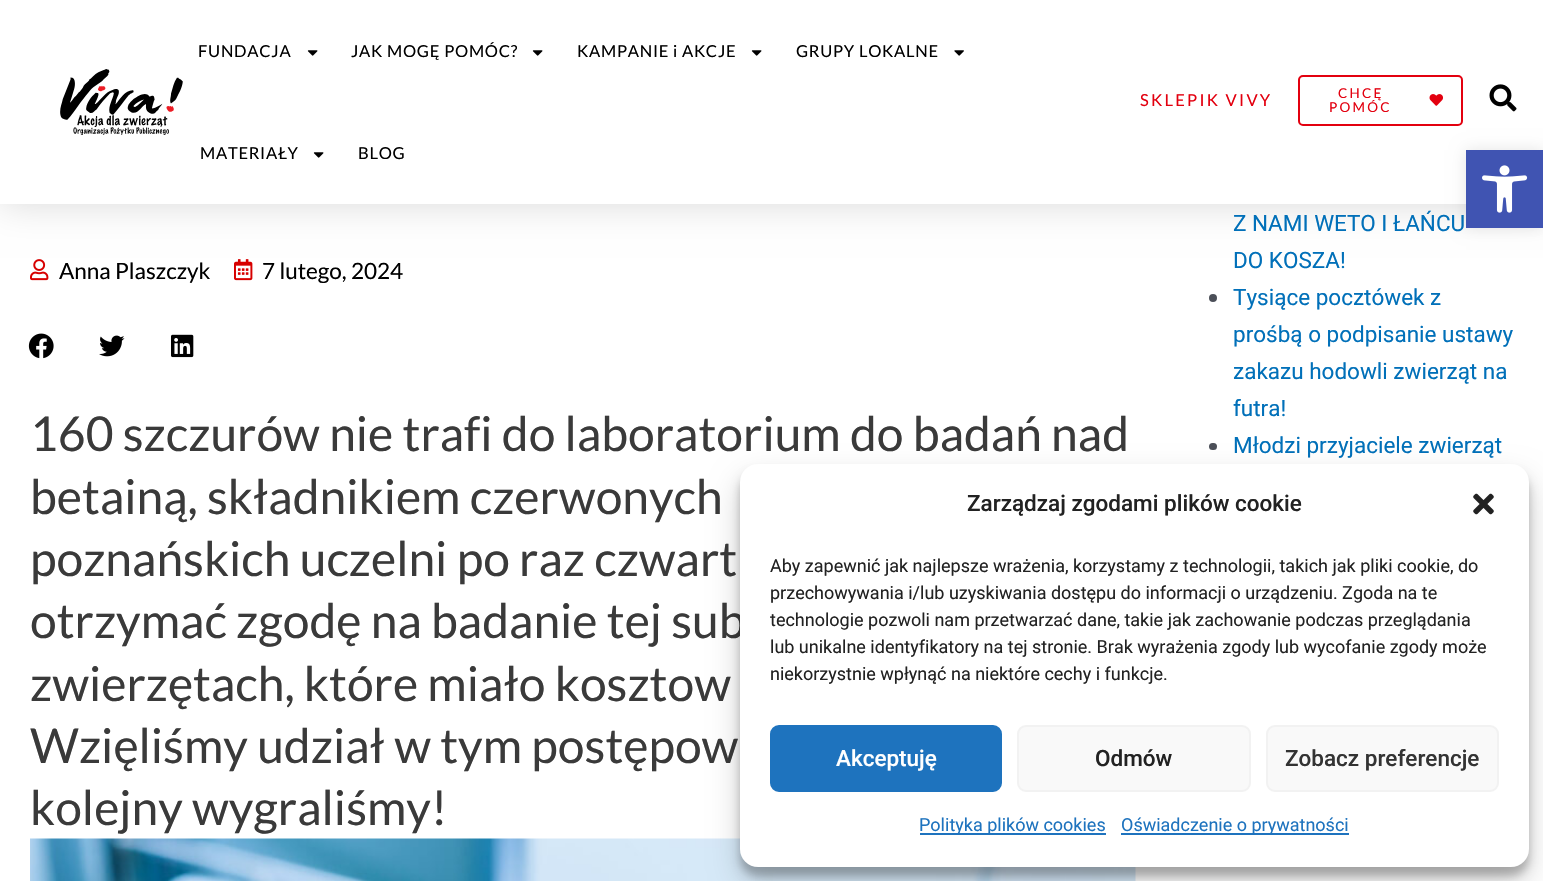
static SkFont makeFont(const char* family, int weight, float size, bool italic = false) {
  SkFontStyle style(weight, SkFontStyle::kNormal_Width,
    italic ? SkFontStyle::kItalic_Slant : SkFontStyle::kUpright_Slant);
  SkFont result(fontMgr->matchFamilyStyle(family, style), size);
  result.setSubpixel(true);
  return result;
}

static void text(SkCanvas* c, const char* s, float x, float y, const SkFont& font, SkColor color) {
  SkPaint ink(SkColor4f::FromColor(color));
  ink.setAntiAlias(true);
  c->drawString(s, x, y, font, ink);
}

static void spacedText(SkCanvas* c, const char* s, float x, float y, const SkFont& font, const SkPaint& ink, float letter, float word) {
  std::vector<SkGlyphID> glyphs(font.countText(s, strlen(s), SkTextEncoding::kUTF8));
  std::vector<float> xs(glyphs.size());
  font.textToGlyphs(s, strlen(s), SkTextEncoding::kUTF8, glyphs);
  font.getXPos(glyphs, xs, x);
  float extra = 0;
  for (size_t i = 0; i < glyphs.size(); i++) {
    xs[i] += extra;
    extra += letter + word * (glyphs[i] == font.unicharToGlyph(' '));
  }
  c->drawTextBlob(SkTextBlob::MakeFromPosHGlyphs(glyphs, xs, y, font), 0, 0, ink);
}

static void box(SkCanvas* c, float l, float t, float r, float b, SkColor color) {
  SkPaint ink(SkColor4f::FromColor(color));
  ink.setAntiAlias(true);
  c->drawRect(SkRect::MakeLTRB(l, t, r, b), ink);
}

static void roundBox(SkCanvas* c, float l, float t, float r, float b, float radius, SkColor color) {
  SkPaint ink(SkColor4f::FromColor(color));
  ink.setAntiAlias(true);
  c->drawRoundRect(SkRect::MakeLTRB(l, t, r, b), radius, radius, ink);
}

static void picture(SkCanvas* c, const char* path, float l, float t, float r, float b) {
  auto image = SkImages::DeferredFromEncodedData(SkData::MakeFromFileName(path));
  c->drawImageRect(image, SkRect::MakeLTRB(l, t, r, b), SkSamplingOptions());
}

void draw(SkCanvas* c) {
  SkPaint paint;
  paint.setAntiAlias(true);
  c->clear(0xffffffff);
  paint.setColor(0x26000000);
  paint.setMaskFilter(SkMaskFilter::MakeBlur(kNormal_SkBlurStyle, 18));
  c->drawRect(SkRect::MakeLTRB(0, 0, 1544, 204), paint);
  paint.setMaskFilter(nullptr);
  box(c, 0, 0, 1543, 204, 0xffffffff);
  picture(c, "img_01.png", 60, 69, 183, 135);
  SkFont face1 = makeFont("Lato", 400, 16.5f);
  paint.setColor(0xff000000);
  spacedText(c, "FUNDACJA", 198, 57, face1, paint, 0.75f, 0);
  picture(c, "img_02.png", 307, 50, 318, 56);
  spacedText(c, "JAK MOGĘ POMÓC?", 351, 57, face1, paint, 0.75f, 0);
  picture(c, "img_02.png", 532, 50, 543, 56);
  spacedText(c, "KAMPANIE i AKCJE", 577, 57, face1, paint, 0.75f, 0);
  picture(c, "img_02.png", 751, 50, 762, 56);
  spacedText(c, "GRUPY LOKALNE", 796, 57, face1, paint, 0.75f, 0);
  picture(c, "img_03.png", 954, 50, 964, 56);
  spacedText(c, "MATERIAŁY", 200, 159, face1, paint, 0.75f, 0);
  picture(c, "img_02.png", 313, 152, 324, 158);
  spacedText(c, "BLOG", 358, 159, face1, paint, 0.75f, 0);
  paint.setColor(0xffe3000f);
  spacedText(c, "SKLEPIK VIVY", 1140, 106, face1, paint, 2.25f, 0);
  paint.setStyle(SkPaint::kStroke_Style);
  paint.setStrokeWidth(2);
  c->drawRoundRect(SkRect::MakeLTRB(1299, 76, 1462, 125), 4, 4, paint);
  SkFont face2 = makeFont("Lato", 400, 13.5f);
  paint.setStyle(SkPaint::kFill_Style);
  spacedText(c, "CHCĘ", 1338, 98, face2, paint, 2.25f, 0);
  spacedText(c, "POMÓC", 1329, 112, face2, paint, 2.25f, 0);
  picture(c, "img_04.png", 1429, 94, 1443, 106);
  picture(c, "img_05.png", 1489, 84, 1517, 112);
  picture(c, "img_06.png", 30, 259, 49, 281);
  SkFont face3 = makeFont("Lato", 400, 22.5f);
  text(c, "Anna Plaszczyk", 59, 279, face3, 0xff000000);
  picture(c, "img_07.png", 234, 259, 253, 281);
  text(c, "7 lutego, 2024", 262, 279, face3, 0xff000000);
  picture(c, "img_08.png", 28, 333, 54, 359);
  picture(c, "img_09.png", 99, 335, 125, 357);
  picture(c, "img_10.png", 171, 334, 194, 358);
  SkFont face4 = makeFont("Lato", 400, 48);
  text(c, "160 szczurów nie trafi do laboratorium do badań nad", 30, 451, face4, 0xff3a3a3a);
  text(c, "betainą, składnikiem czerwonych", 30, 514, face4, 0xff3a3a3a);
  text(c, "poznańskich uczelni po raz czwart", 30, 576, face4, 0xff3a3a3a);
  text(c, "otrzymać zgodę na badanie tej sub", 30, 638, face4, 0xff3a3a3a);
  text(c, "zwierzętach, które miało kosztow", 30, 701, face4, 0xff3a3a3a);
  text(c, "Wzięliśmy udział w tym postępow", 30, 763, face4, 0xff3a3a3a);
  text(c, "kolejny wygraliśmy!", 30, 825, face4, 0xff3a3a3a);
  picture(c, "img_11.png", 30, 838, 1136, 881);
  SkFont face5 = makeFont("Roboto", 400, 22.5f);
  text(c, "Z NAMI WETO I ŁAŃCU", 1233, 231, face5, 0xff0170b9);
  text(c, "DO KOSZA!", 1233, 268, face5, 0xff0170b9);
  paint.setColor(0xff4b4f58);
  c->drawCircle(1213, 298, 4, paint);
  text(c, "Tysiące pocztówek z", 1233, 305, face5, 0xff0170b9);
  text(c, "prośbą o podpisanie ustawy", 1233, 342, face5, 0xff0170b9);
  text(c, "zakazu hodowli zwierząt na", 1233, 379, face5, 0xff0170b9);
  text(c, "futra!", 1233, 416, face5, 0xff0170b9);
  roundBox(c, 1209, 443, 1217, 450, 3.5f, 0xff4b4f58);
  text(c, "Młodzi przyjaciele zwierząt", 1233, 453, face5, 0xff0170b9);
  paint.setColor(0x1a000000);
  paint.setMaskFilter(SkMaskFilter::MakeBlur(kNormal_SkBlurStyle, 7.5f));
  c->drawRect(SkRect::MakeLTRB(1466, 150, 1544, 228), paint);
  paint.setMaskFilter(nullptr);
  box(c, 1466, 150, 1543, 228, 0xff4054b2);
  picture(c, "img_12.png", 1482, 165, 1528, 213);
  paint.setColor(0x3b000000);
  paint.setMaskFilter(SkMaskFilter::MakeBlur(kNormal_SkBlurStyle, 4.5f));
  c->drawRoundRect(SkRect::MakeLTRB(740, 473, 1529, 876), 18, 18, paint);
  paint.setMaskFilter(nullptr);
  paint.setColor(0x30000000);
  paint.setMaskFilter(SkMaskFilter::MakeBlur(kNormal_SkBlurStyle, 15));
  c->drawRoundRect(SkRect::MakeLTRB(740, 479, 1529, 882), 18, 18, paint);
  paint.setMaskFilter(nullptr);
  roundBox(c, 740, 464, 1529, 867, 18, 0xffffffff);
  SkFont face6 = makeFont("Roboto", 500, 22.5f);
  text(c, "Zarządzaj zgodami plików cookie", 967, 511, face6, 0xff222222);
  picture(c, "img_13.png", 1473, 493, 1494, 515);
  SkFont face7 = makeFont("Roboto", 400, 18);
  text(c, "Aby zapewnić jak najlepsze wrażenia, korzystamy z technologii, takich jak pliki cookie, do", 770, 572, face7, 0xff222222);
  text(c, "przechowywania i/lub uzyskiwania dostępu do informacji o urządzeniu. Zgoda na te", 770, 599, face7, 0xff222222);
  text(c, "technologie pozwoli nam przetwarzać dane, takie jak zachowanie podczas przeglądania", 770, 626, face7, 0xff222222);
  text(c, "lub unikalne identyfikatory na tej stronie. Brak wyrażenia zgody lub wycofanie zgody może", 770, 653, face7, 0xff222222);
  text(c, "niekorzystnie wpłynąć na niektóre cechy i funkcje.", 770, 680, face7, 0xff222222);
  paint.setColor(0xff1e73be);
  c->drawRoundRect(SkRect::MakeLTRB(771, 726, 1001, 791), 8, 8, paint);
  paint.setStyle(SkPaint::kStroke_Style);
  c->drawRoundRect(SkRect::MakeLTRB(771, 726, 1001, 791), 8, 8, paint);
  text(c, "Akceptuję", 836, 766, face6, 0xffffffff);
  paint.setStyle(SkPaint::kFill_Style);
  paint.setColor(0xfff9f9f9);
  c->drawRoundRect(SkRect::MakeLTRB(1018, 726, 1250, 791), 8, 8, paint);
  paint.setStyle(SkPaint::kStroke_Style);
  paint.setColor(0xfff2f2f2);
  c->drawRoundRect(SkRect::MakeLTRB(1018, 726, 1250, 791), 8, 8, paint);
  text(c, "Odmów", 1095, 766, face6, 0xff222222);
  paint.setStyle(SkPaint::kFill_Style);
  paint.setColor(0xfff9f9f9);
  c->drawRoundRect(SkRect::MakeLTRB(1267, 726, 1498, 791), 8, 8, paint);
  paint.setStyle(SkPaint::kStroke_Style);
  paint.setColor(0xfff2f2f2);
  c->drawRoundRect(SkRect::MakeLTRB(1267, 726, 1498, 791), 8, 8, paint);
  text(c, "Zobacz preferencje", 1285, 766, face6, 0xff333333);
  box(c, 920, 833, 1106, 835, 0xff1e73be);
  text(c, "Polityka plików cookies", 919, 831, face7, 0xff1e73be);
  box(c, 1121, 833, 1349, 835, 0xff1e73be);
  text(c, "Oświadczenie o prywatności", 1121, 831, face7, 0xff1e73be);
}
